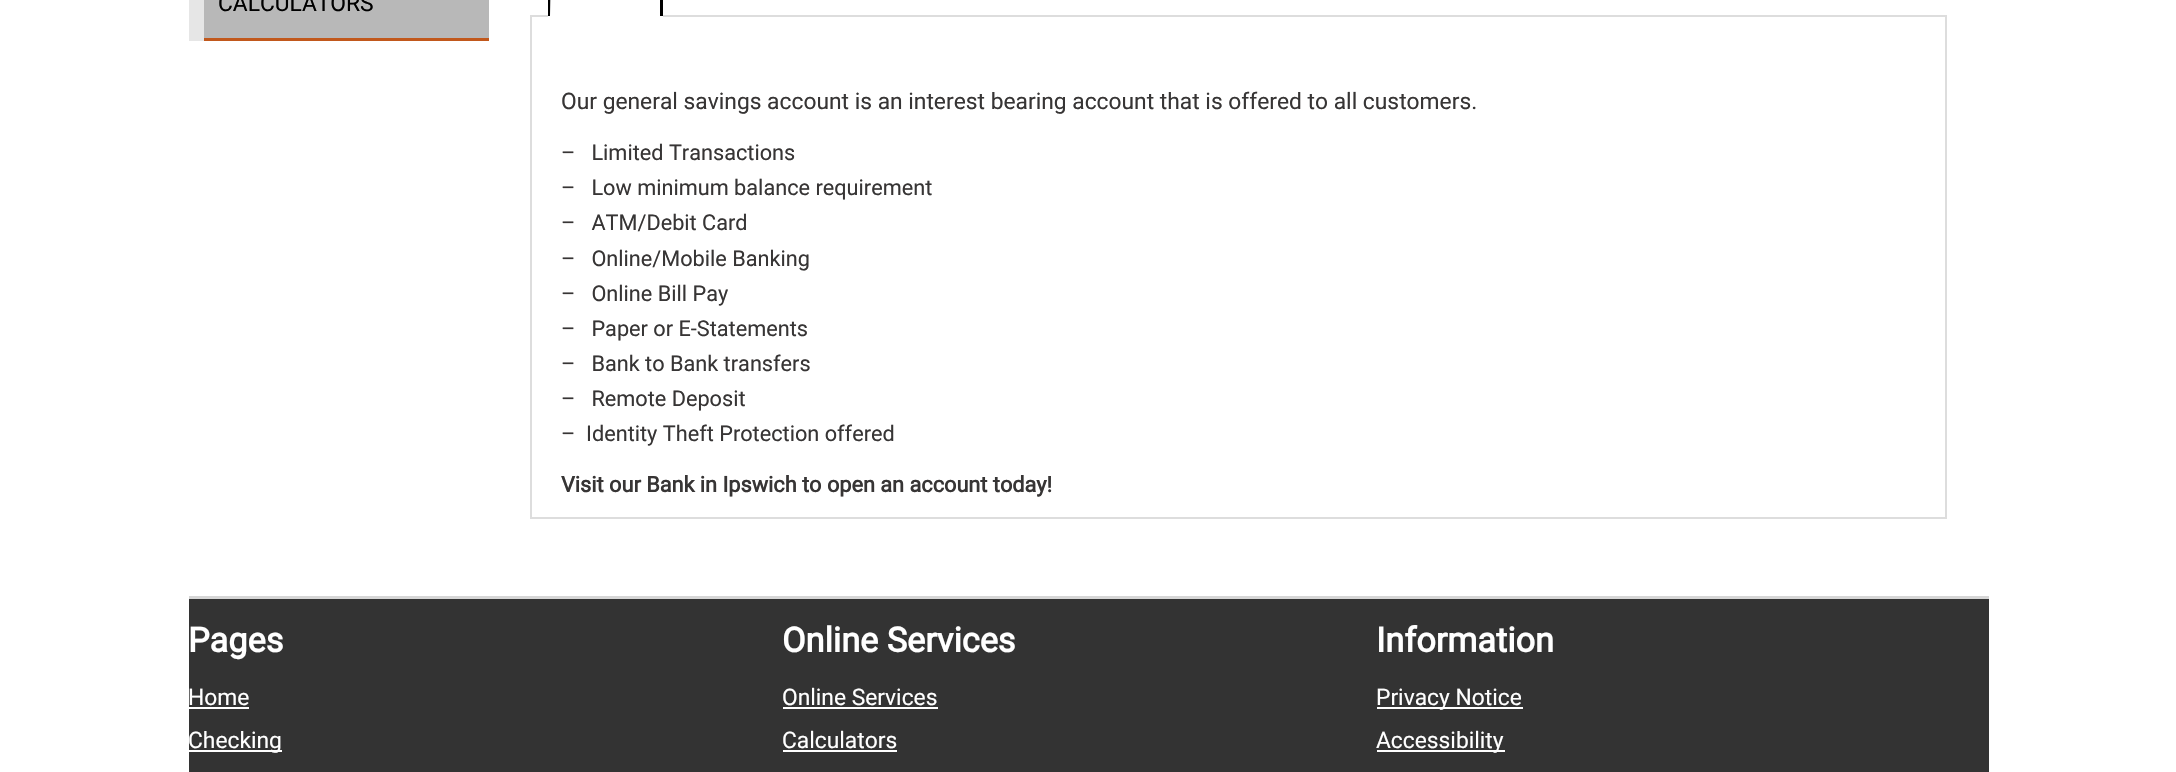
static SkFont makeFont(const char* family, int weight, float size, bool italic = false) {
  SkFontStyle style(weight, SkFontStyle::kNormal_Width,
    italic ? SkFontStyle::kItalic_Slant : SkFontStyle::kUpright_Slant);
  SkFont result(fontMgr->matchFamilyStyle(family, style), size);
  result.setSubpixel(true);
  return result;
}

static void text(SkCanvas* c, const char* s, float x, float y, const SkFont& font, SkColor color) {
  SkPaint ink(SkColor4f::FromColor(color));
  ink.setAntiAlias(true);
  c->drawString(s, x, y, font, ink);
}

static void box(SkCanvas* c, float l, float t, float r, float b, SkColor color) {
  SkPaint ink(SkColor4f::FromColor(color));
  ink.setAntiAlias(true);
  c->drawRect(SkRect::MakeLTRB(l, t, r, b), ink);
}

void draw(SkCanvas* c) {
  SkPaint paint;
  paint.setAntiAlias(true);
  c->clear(0xffffffff);
  box(c, 189, 0, 204, 41, 0xffe6e6e6);
  box(c, 204, 0, 489, 38, 0xffb8b8b8);
  box(c, 204, 38, 489, 41, 0xffc1581c);
  SkFont face1 = makeFont("Roboto", 400, 22.8f);
  text(c, "CALCULATORS", 218, 11, face1, 0xff000000);
  paint.setStyle(SkPaint::kStroke_Style);
  paint.setStrokeWidth(2);
  paint.setColor(0xffdddddd);
  c->drawRect(SkRect::MakeLTRB(531, 16, 1946, 518), paint);
  box(c, 548, 15, 663, 17, 0xffffffff);
  paint.setStyle(SkPaint::kFill_Style);
  paint.setColor(0xff000000);
  c->drawPath(SkPathBuilder(SkPathFillType::kEvenOdd).moveTo(552, -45).lineTo(658, -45).cubicTo(661, -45, 663, -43, 663, -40).lineTo(663, 16).lineTo(548, 16).lineTo(548, -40).cubicTo(548, -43, 550, -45, 552, -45).close().moveTo(552, -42).lineTo(658, -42).cubicTo(659, -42, 660, -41, 660, -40).lineTo(660, 16).lineTo(550, 16).lineTo(551, -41).close().detach(), paint);
  text(c, "Our general savings account is an interest bearing account that is offered to all customers.", 561, 109, face1, 0xff373535);
  SkFont face2 = makeFont("Roboto", 400, 21.7f);
  text(c, "–   Limited Transactions", 561, 160, face2, 0xff373535);
  text(c, "–   Low minimum balance requirement", 561, 195, face2, 0xff373535);
  text(c, "–   ATM/Debit Card", 561, 230, face2, 0xff373535);
  text(c, "–   Online/Mobile Banking", 561, 266, face2, 0xff373535);
  text(c, "–   Online Bill Pay", 561, 301, face2, 0xff373535);
  text(c, "–   Paper or E-Statements", 561, 336, face2, 0xff373535);
  text(c, "–   Bank to Bank transfers", 561, 371, face2, 0xff373535);
  text(c, "–   Remote Deposit", 561, 406, face2, 0xff373535);
  text(c, "–  Identity Theft Protection offered", 561, 441, face2, 0xff373535);
  SkFont face3 = makeFont("Roboto", 700, 21.7f);
  text(c, "Visit our Bank in Ipswich to open an account today!", 561, 492, face3, 0xff373535);
  box(c, 189, 599, 1989, 772, 0xff333333);
  box(c, 189, 596, 1989, 599, 0xffd6d6d6);
  SkFont face4 = makeFont("Roboto", 700, 34.25f);
  text(c, "Pages", 188, 652, face4, 0xffffffff);
  text(c, "Home", 188, 705, face1, 0xffffffff);
  box(c, 189, 707, 249, 709, 0xffffffff);
  box(c, 189, 750, 282, 752, 0xffffffff);
  text(c, "Checking", 188, 748, face1, 0xffffffff);
  text(c, "Online Services", 782, 652, face4, 0xffffffff);
  text(c, "Online Services", 782, 705, face1, 0xffffffff);
  box(c, 783, 707, 938, 709, 0xffffffff);
  text(c, "Calculators", 782, 748, face1, 0xffffffff);
  box(c, 783, 750, 897, 752, 0xffffffff);
  text(c, "Information", 1376, 652, face4, 0xffffffff);
  box(c, 1377, 707, 1523, 709, 0xffffffff);
  text(c, "Privacy Notice", 1376, 705, face1, 0xffffffff);
  box(c, 1377, 750, 1505, 752, 0xffffffff);
  text(c, "Accessibility", 1376, 748, face1, 0xffffffff);
}
